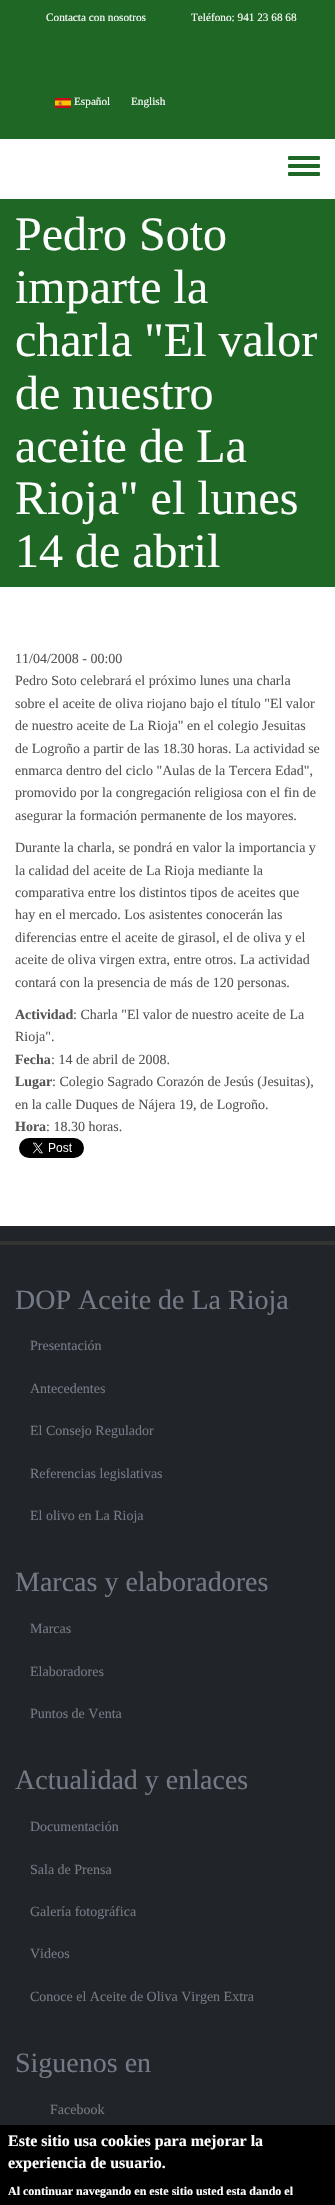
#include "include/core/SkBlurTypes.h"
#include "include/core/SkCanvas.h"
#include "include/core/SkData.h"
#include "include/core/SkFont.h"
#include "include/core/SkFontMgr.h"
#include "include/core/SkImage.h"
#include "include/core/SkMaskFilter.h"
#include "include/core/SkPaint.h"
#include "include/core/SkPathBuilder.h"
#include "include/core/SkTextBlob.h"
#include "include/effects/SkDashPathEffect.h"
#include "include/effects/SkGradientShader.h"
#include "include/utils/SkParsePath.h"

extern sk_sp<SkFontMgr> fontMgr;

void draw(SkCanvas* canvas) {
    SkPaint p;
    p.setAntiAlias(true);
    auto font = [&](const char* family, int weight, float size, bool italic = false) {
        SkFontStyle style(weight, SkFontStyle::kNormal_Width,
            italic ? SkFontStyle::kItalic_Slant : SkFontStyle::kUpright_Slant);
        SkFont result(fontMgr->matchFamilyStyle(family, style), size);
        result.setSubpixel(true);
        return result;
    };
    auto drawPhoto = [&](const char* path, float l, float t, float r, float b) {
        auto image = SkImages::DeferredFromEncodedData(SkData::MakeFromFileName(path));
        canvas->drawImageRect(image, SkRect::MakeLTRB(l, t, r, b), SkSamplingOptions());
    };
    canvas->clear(0xFFFFFFFF);
    p.setColor(0xFF1E6725);
    canvas->drawRect(SkRect::MakeLTRB(0, 0, 335, 139), p);
    auto font1 = font("Liberation Serif", 400, 11.25f);
    p.setColor(0xFFFFFEFF);
    canvas->drawString("Contacta con nosotros", 46, 21, font1, p);
    canvas->drawString("Teléfono: 941 23 68 68", 191, 21, font1, p);
    drawPhoto("media/1.png", 55, 98, 71, 108);
    canvas->drawString("Español", 74, 105, font1, p);
    canvas->drawString("English", 131, 105, font1, p);
    p.setColor(0xFF1E6725);
    canvas->drawRoundRect(SkRect::MakeLTRB(288, 164, 320, 168), 1, 1, p);
    canvas->drawRoundRect(SkRect::MakeLTRB(288, 156, 320, 160), 1, 1, p);
    canvas->drawRoundRect(SkRect::MakeLTRB(288, 172, 320, 176), 1, 1, p);
    canvas->drawRect(SkRect::MakeLTRB(0, 199, 335, 587), p);
    auto font2 = font("Liberation Serif", 400, 48);
    p.setColor(0xFFFFFEFF);
    {
        const struct { const char* s; float x, y; } items[] = {
            {"Pedro Soto", 15, 250},
            {"imparte la", 15, 303},
            {"charla \"El valor", 15, 356},
            {"de nuestro", 15, 409},
            {"aceite de La", 15, 462},
            {"Rioja\" el lunes", 15, 514},
            {"14 de abril", 15, 567},
        };
        for (auto [s, x, y] : items) {
            canvas->drawString(s, x, y, font2, p);
        }
    }
    auto font3 = font("Liberation Serif", 400, 14);
    p.setColor(0xFF555555);
    {
        const struct { const char* s; float x, y; } items[] = {
            {"11/04/2008 - 00:00", 15, 663},
            {"Pedro Soto celebrará el próximo lunes una charla", 15, 685},
            {"sobre el aceite de oliva riojano bajo el título \"El valor", 15, 708},
            {"de nuestro aceite de La Rioja\" en el colegio Jesuitas", 15, 730},
            {"de Logroño a partir de las 18.30 horas. La actividad se", 15, 753},
            {"enmarca dentro del ciclo \"Aulas de la Tercera Edad\",", 15, 775},
            {"promovido por la congregación religiosa con el fin de", 15, 797},
            {"asegurar la formación permanente de los mayores.", 15, 820},
            {"Durante la charla, se pondrá en valor la importancia y", 15, 852},
            {"la calidad del aceite de La Rioja mediante la", 15, 875},
            {"comparativa entre los distintos tipos de aceites que", 15, 897},
            {"hay en el mercado. Los asistentes conocerán las", 15, 919},
            {"diferencias entre el aceite de girasol, el de oliva y el", 15, 942},
            {"aceite de oliva virgen extra, entre otros. La actividad", 15, 964},
            {"contará con la presencia de más de 120 personas.", 15, 987},
        };
        for (auto [s, x, y] : items) {
            canvas->drawString(s, x, y, font3, p);
        }
    }
    auto font4 = font("Liberation Serif", 700, 14);
    canvas->drawString("Actividad", 15, 1019, font4, p);
    canvas->drawString(": Charla \"El valor de nuestro aceite de La", 73, 1019, font3, p);
    canvas->drawString("Rioja\".", 15, 1041, font3, p);
    canvas->drawString("Fecha", 15, 1064, font4, p);
    canvas->drawString(": 14 de abril de 2008.", 51, 1064, font3, p);
    canvas->drawString("Lugar", 15, 1086, font4, p);
    canvas->drawString(": Colegio Sagrado Corazón de Jesús (Jesuitas),", 52, 1086, font3, p);
    canvas->drawString("en la calle Duques de Nájera 19, de Logroño.", 15, 1109, font3, p);
    canvas->drawString("Hora", 15, 1131, font4, p);
    canvas->drawString(": 18.30 horas.", 46, 1131, font3, p);
    drawPhoto("media/2.png", 19, 1138, 84, 1158);
    p.setColor(0xFF21252A);
    canvas->drawRect(SkRect::MakeLTRB(0, 1226, 335, 2125), p);
    p.setColor(0xFF333333);
    canvas->drawRect(SkRect::MakeLTRB(0, 1241, 335, 1245), p);
    auto font5 = font("Liberation Serif", 400, 28);
    p.setColor(0xFF747A85);
    canvas->drawString("DOP Aceite de La Rioja", 15, 1309, font5, p);
    {
        const struct { const char* s; float x, y; } items[] = {
            {"Presentación", 30, 1350},
            {"Antecedentes", 30, 1393},
            {"El Consejo Regulador", 30, 1435},
            {"Referencias legislativas", 30, 1478},
            {"El olivo en La Rioja", 30, 1520},
        };
        for (auto [s, x, y] : items) {
            canvas->drawString(s, x, y, font3, p);
        }
    }
    canvas->drawString("Marcas y elaboradores", 15, 1591, font5, p);
    {
        const struct { const char* s; float x, y; } items[] = {
            {"Marcas", 30, 1633},
            {"Elaboradores", 30, 1676},
            {"Puntos de Venta", 30, 1718},
        };
        for (auto [s, x, y] : items) {
            canvas->drawString(s, x, y, font3, p);
        }
    }
    canvas->drawString("Actualidad y enlaces", 15, 1789, font5, p);
    {
        const struct { const char* s; float x, y; } items[] = {
            {"Documentación", 30, 1831},
            {"Sala de Prensa", 30, 1874},
            {"Galería fotográfica", 30, 1916},
            {"Videos", 30, 1958},
            {"Conoce el Aceite de Oliva Virgen Extra", 30, 2001},
        };
        for (auto [s, x, y] : items) {
            canvas->drawString(s, x, y, font3, p);
        }
    }
    canvas->drawString("Siguenos en", 15, 2072, font5, p);
    canvas->drawString("Facebook", 50, 2114, font3, p);
    p.setColor(0xFF000000);
    canvas->drawRect(SkRect::MakeLTRB(0, 2125, 335, 2205), p);
    auto font6 = font("Liberation Serif", 700, 16);
    p.setColor(0xFFFFFEFF);
    canvas->drawString("Este sitio usa cookies para mejorar la", 8, 2146, font6, p);
    canvas->drawString("experiencia de usuario.", 8, 2168, font6, p);
    auto font7 = font("Liberation Serif", 700, 12);
    canvas->drawString("Al continuar navegando en este sitio usted esta dando el", 8, 2195, font7, p);
}
